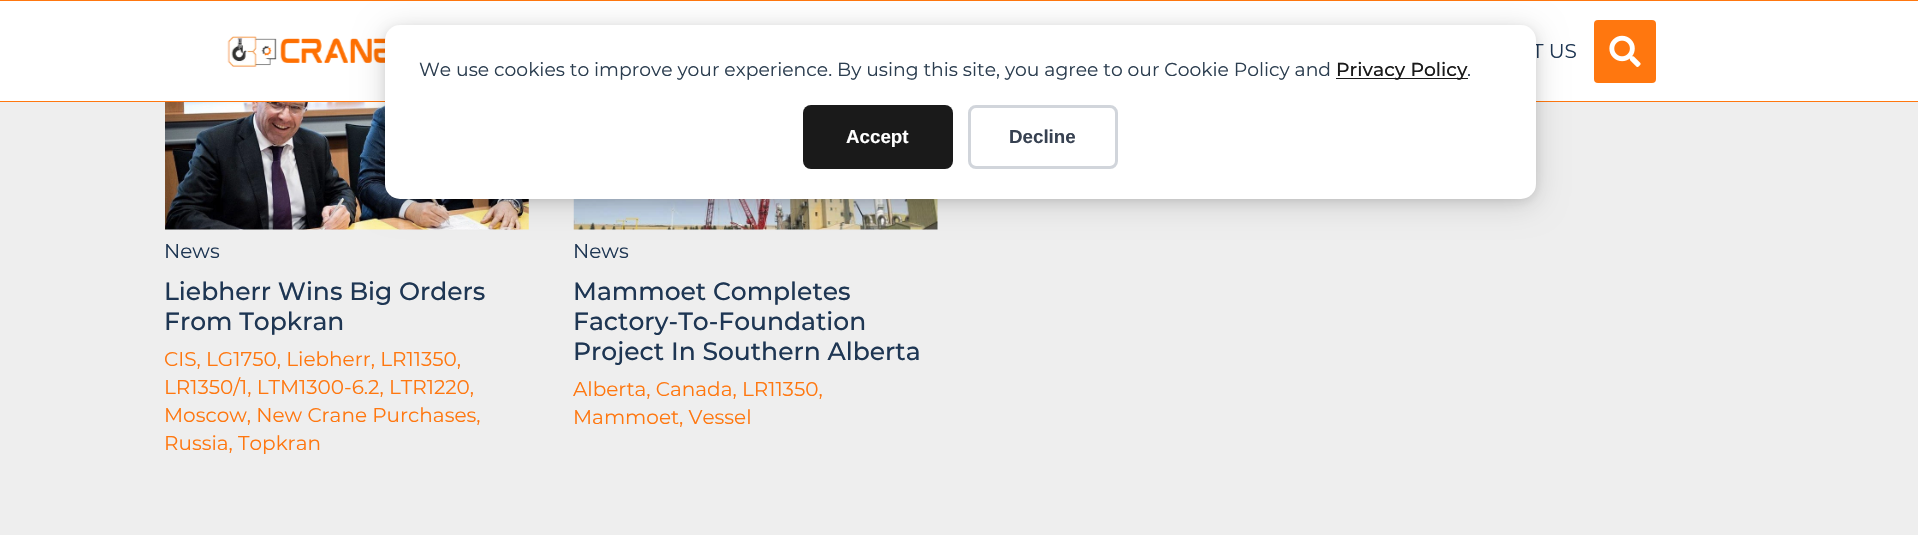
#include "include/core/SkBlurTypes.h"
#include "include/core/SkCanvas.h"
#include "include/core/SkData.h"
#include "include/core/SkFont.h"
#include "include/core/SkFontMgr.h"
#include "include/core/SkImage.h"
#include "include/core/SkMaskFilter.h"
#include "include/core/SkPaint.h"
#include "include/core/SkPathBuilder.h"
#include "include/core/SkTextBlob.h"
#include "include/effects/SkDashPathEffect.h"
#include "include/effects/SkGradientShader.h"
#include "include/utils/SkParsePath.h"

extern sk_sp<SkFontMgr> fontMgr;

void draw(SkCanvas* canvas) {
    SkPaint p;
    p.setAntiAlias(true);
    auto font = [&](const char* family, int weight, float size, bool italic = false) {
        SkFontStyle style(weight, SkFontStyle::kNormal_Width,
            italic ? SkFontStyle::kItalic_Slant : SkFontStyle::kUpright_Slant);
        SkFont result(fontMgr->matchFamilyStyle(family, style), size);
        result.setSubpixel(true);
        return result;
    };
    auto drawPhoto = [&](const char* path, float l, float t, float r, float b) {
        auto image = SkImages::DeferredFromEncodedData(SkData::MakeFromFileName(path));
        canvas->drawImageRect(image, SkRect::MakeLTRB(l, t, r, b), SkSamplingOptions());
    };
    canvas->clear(0xFFEEEEEE);
    {
        const struct { float l, t, r, b; SkColor color; } items[] = {
            {0, 1, 1918, 101, 0xFFFFFFFF},
            {0, 0, 1918, 1, 0xFFFF770F},
            {0, 101, 1918, 102, 0xFFFF770F},
        };
        for (auto [l, t, r, b, color] : items) {
            p.setColor(color);
            canvas->drawRect(SkRect::MakeLTRB(l, t, r, b), p);
        }
    }
    drawPhoto("media/1.png", 227, 36, 386, 67);
    auto font1 = font("Montserrat", 400, 20);
    p.setColor(0xFF1E3653);
    canvas->drawString("T US", 1532, 58, font1, p);
    p.setColor(0xFFFF770F);
    canvas->drawRoundRect(SkRect::MakeLTRB(1594, 20, 1656, 83), 4, 4, p);
    drawPhoto("media/2.png", 1609, 35, 1641, 67);
    drawPhoto("media/3.png", 165, 102, 529, 230);
    drawPhoto("media/4.png", 573, 199, 938, 230);
    p.setColor(0x1A000000);
    p.setMaskFilter(SkMaskFilter::MakeBlur(kNormal_SkBlurStyle, 5));
    canvas->drawRoundRect(SkRect::MakeLTRB(385, 28, 1536, 201), 15, 15, p);
    p.setMaskFilter(nullptr);
    p.setColor(0x26000000);
    p.setMaskFilter(SkMaskFilter::MakeBlur(kNormal_SkBlurStyle, 15));
    canvas->drawRoundRect(SkRect::MakeLTRB(385, 30, 1536, 204), 15, 15, p);
    p.setMaskFilter(nullptr);
    p.setColor(0xFFFFFFFF);
    canvas->drawRoundRect(SkRect::MakeLTRB(385, 25, 1536, 199), 15, 15, p);
    auto font2 = font("Montserrat", 400, 18.75f);
    p.setColor(0xFF2C3E50);
    canvas->drawString("We use cookies to improve your experience. By using this site, you agree to our Cookie Policy and", 419, 76, font2, p);
    p.setColor(0xFF1A1A1A);
    canvas->drawRect(SkRect::MakeLTRB(1336, 78, 1468, 79), p);
    auto font3 = font("Montserrat", 500, 18.75f);
    canvas->drawString("Privacy Policy", 1336, 76, font3, p);
    p.setColor(0xFF2C3E50);
    canvas->drawString(".", 1467, 76, font2, p);
    p.setColor(0xFF1A1A1A);
    canvas->drawRoundRect(SkRect::MakeLTRB(803, 105, 953, 169), 8, 8, p);
    auto font4 = font("Liberation Sans", 700, 18.75f);
    p.setColor(0xFFFFFFFF);
    canvas->drawString("Accept", 846, 143, font4, p);
    p.setStyle(SkPaint::kStroke_Style);
    p.setStrokeWidth(3);
    p.setColor(0xFFD1D5DB);
    canvas->drawRoundRect(SkRect::MakeLTRB(969.5f, 106.5f, 1116.5f, 167.5f), 6.5f, 6.5f, p);
    p.setStyle(SkPaint::kFill_Style);
    p.setColor(0xFF374151);
    canvas->drawString("Decline", 1009, 143, font4, p);
    p.setColor(0xFF1E3653);
    canvas->drawString("News", 164, 258, font1, p);
    auto font5 = font("Montserrat", 500, 25);
    canvas->drawString("Liebherr Wins Big Orders", 164, 300, font5, p);
    canvas->drawString("From Topkran", 164, 330, font5, p);
    p.setColor(0xFFFF770F);
    {
        const struct { const char* s; float x, y; } items[] = {
            {"CIS, LG1750, Liebherr, LR11350,", 164, 366},
            {"LR1350/1, LTM1300-6.2, LTR1220,", 164, 394},
            {"Moscow, New Crane Purchases,", 164, 422},
            {"Russia, Topkran", 164, 450},
        };
        for (auto [s, x, y] : items) {
            canvas->drawString(s, x, y, font1, p);
        }
    }
    p.setColor(0xFF1E3653);
    canvas->drawString("News", 573, 258, font1, p);
    {
        const struct { const char* s; float x, y; } items[] = {
            {"Mammoet Completes", 573, 300},
            {"Factory-To-Foundation", 573, 330},
            {"Project In Southern Alberta", 573, 360},
        };
        for (auto [s, x, y] : items) {
            canvas->drawString(s, x, y, font5, p);
        }
    }
    p.setColor(0xFFFF770F);
    canvas->drawString("Alberta, Canada, LR11350,", 573, 396, font1, p);
    canvas->drawString("Mammoet, Vessel", 573, 424, font1, p);
}
